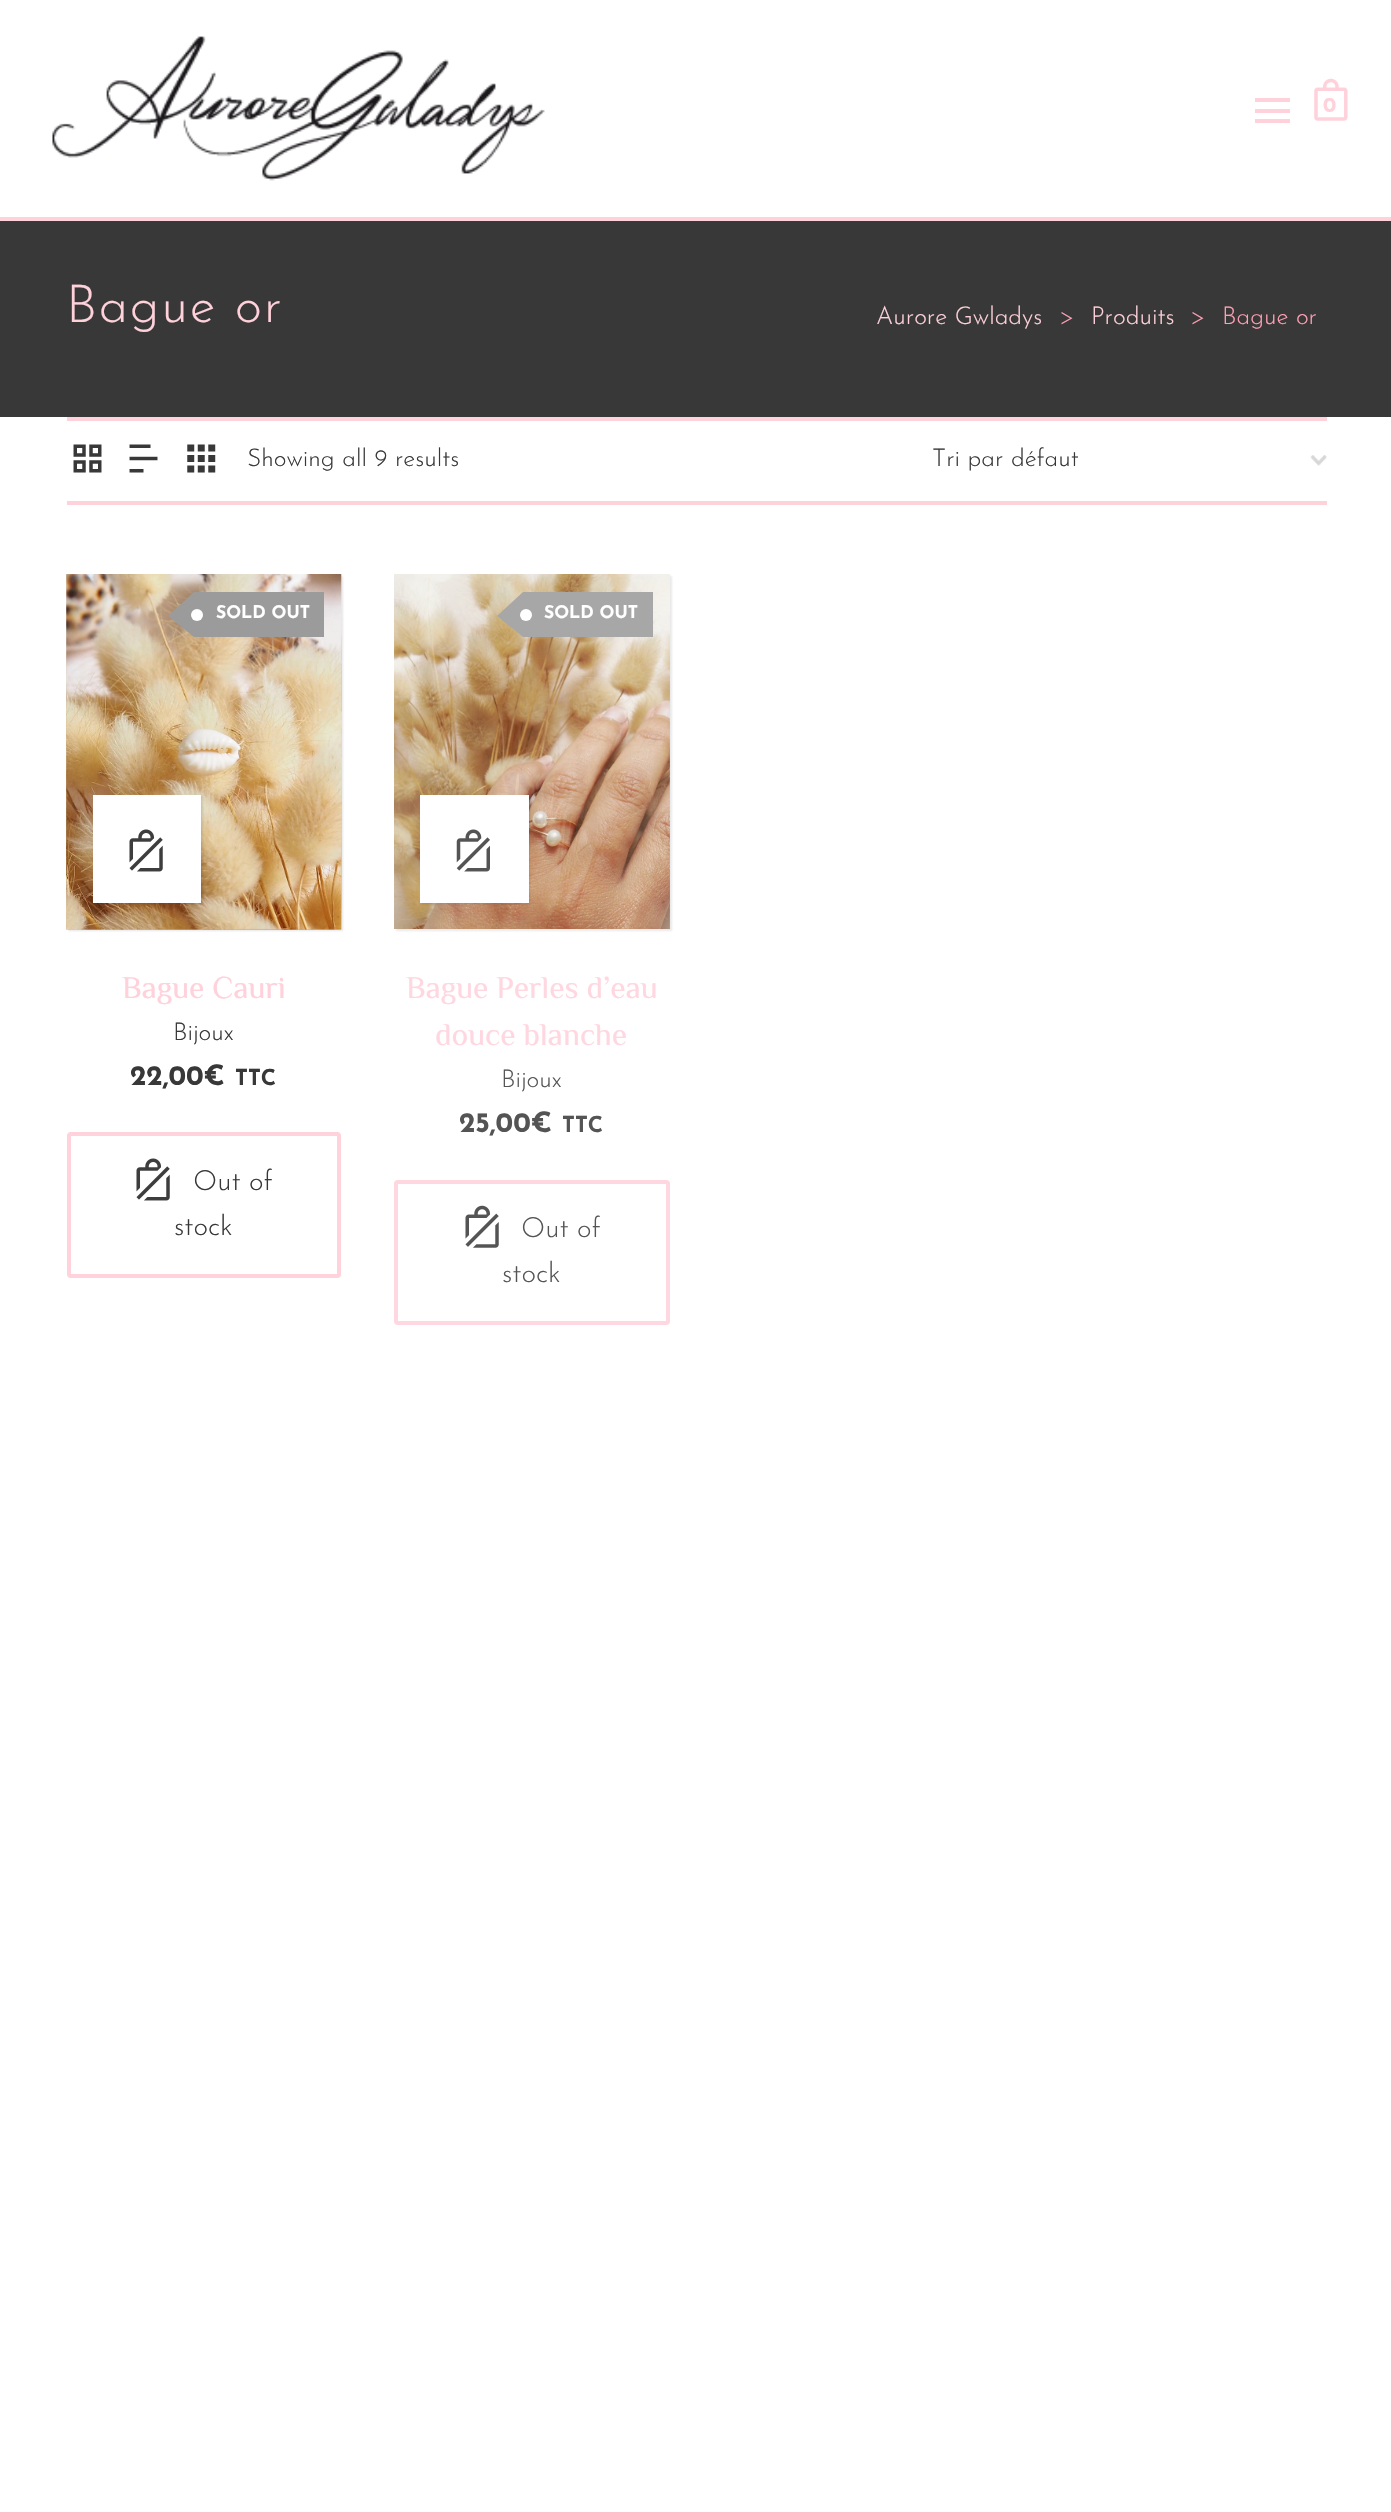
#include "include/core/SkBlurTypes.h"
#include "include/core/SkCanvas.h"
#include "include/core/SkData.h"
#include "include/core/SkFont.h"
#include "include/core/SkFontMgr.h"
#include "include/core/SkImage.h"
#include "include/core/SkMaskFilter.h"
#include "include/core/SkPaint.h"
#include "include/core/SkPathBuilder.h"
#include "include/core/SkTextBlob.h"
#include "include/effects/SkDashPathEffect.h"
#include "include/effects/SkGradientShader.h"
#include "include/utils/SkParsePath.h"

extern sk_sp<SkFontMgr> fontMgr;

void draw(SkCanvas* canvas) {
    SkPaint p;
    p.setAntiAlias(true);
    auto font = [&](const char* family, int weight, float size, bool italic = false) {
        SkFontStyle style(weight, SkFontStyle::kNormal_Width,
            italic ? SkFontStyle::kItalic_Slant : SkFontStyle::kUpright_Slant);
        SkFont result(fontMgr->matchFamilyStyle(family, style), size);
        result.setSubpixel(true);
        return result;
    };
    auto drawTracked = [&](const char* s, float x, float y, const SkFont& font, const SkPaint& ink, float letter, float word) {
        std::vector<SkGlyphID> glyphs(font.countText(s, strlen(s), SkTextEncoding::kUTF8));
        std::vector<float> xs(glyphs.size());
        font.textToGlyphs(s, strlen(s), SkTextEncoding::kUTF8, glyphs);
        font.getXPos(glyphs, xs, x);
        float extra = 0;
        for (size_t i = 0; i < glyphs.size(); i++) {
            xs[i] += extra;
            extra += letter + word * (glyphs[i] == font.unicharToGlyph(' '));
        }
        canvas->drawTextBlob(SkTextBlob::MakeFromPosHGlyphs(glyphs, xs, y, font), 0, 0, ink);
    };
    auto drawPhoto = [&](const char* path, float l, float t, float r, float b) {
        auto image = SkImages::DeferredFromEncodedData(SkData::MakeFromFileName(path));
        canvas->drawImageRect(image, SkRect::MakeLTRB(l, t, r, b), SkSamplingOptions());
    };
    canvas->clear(0xFFFFFFFF);
    p.setColor(0xFFFFD1DB);
    canvas->drawRect(SkRect::MakeLTRB(0, 217, 1391, 221), p);
    drawPhoto("media/1.png", 52, 36, 545, 181);
    {
        const struct { float l, t, r, b; SkColor color; } items[] = {
            {1255, 109, 1290, 113, 0xFFFFD1DB},
            {1255, 98, 1290, 102, 0xFFFFD1DB},
            {1255, 119, 1290, 123, 0xFFFFD1DB},
        };
        for (auto [l, t, r, b, color] : items) {
            p.setColor(color);
            canvas->drawRect(SkRect::MakeLTRB(l, t, r, b), p);
        }
    }
    drawPhoto("media/2.png", 1314, 78, 1348, 121);
    auto font1 = font("Josefin Sans", 700, 21);
    canvas->drawString("0", 1323, 112, font1, p);
    p.setColor(0xFF383838);
    canvas->drawRect(SkRect::MakeLTRB(0, 221, 1391, 417), p);
    auto font2 = font("Josefin Sans", 300, 52.5f);
    p.setColor(0xFFFFD1DB);
    drawTracked("Bague or", 66, 322, font2, p, 1.75f, 0);
    auto font3 = font("Josefin Sans", 300, 24.5f);
    canvas->drawString("Aurore Gwladys", 876, 324, font3, p);
    p.setColor(0xFFFFA0B6);
    canvas->drawString(">", 1059, 324, font3, p);
    p.setColor(0xFFFFD1DB);
    canvas->drawString("Produits", 1091, 324, font3, p);
    p.setColor(0xFFFFA0B6);
    canvas->drawString(">", 1190, 324, font3, p);
    canvas->drawString("Bague or", 1222, 324, font3, p);
    p.setColor(0xFFFFD1DB);
    canvas->drawRect(SkRect::MakeLTRB(67, 417, 1327, 421), p);
    canvas->drawRect(SkRect::MakeLTRB(67, 501, 1327, 505), p);
    drawPhoto("media/3.png", 73, 444, 102, 473);
    drawPhoto("media/4.png", 129, 444, 158, 473);
    drawPhoto("media/5.png", 187, 444, 216, 473);
    p.setColor(0xFF383838);
    canvas->drawString("Showing all 9 results", 247, 466, font3, p);
    drawPhoto("media/6.png", 1310, 455, 1327, 466);
    canvas->drawString("Tri par défaut", 932, 466, font3, p);
    canvas->save();
    canvas->clipPath(SkPathBuilder(SkPathFillType::kEvenOdd).moveTo(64, 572).lineTo(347, 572).lineTo(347, 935).lineTo(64, 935).close().moveTo(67, 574).lineTo(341, 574).lineTo(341, 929).lineTo(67, 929).close().detach(), true);
    p.setColor(0x1A060606);
    p.setMaskFilter(SkMaskFilter::MakeBlur(kNormal_SkBlurStyle, 1));
    canvas->drawRect(SkRect::MakeLTRB(68, 576, 343, 931), p);
    p.setMaskFilter(nullptr);
    canvas->restore();
    drawPhoto("media/7.png", 66, 574, 342, 930);
    drawPhoto("media/8.png", 66, 574, 342, 930);
    p.setColor(0xFF9B9B9B);
    canvas->drawRect(SkRect::MakeLTRB(194, 592, 324, 637), p);
    canvas->drawPath(SkPathBuilder().moveTo(194, 592).lineTo(194, 637).lineTo(168, 616).close().detach(), p);
    p.setColor(0xFFFFFFFF);
    canvas->drawCircle(197, 615, 6, p);
    auto font4 = font("Josefin Sans", 700, 17.5f);
    canvas->drawString("SOLD OUT", 216, 618, font4, p);
    p.setColor(0x1A060606);
    p.setMaskFilter(SkMaskFilter::MakeBlur(kNormal_SkBlurStyle, 1));
    canvas->drawRect(SkRect::MakeLTRB(95, 796, 203, 905), p);
    p.setMaskFilter(nullptr);
    p.setColor(0xFFFFFFFF);
    canvas->drawRect(SkRect::MakeLTRB(93, 795, 201, 903), p);
    drawPhoto("media/9.png", 129, 829, 163, 872);
    auto font5 = font("Philosopher", 400, 31.5f);
    p.setColor(0xFFFFD1DB);
    canvas->drawString("Bague Cauri", 122, 998, font5, p);
    p.setColor(0xFF383838);
    canvas->drawString("Bijoux", 173, 1040, font3, p);
    auto font6 = font("Josefin Sans", 700, 28);
    canvas->drawString("22,00€", 130, 1085, font6, p);
    auto font7 = font("Josefin Sans", 700, 22);
    canvas->drawString("TTC", 235, 1085, font7, p);
    p.setStyle(SkPaint::kStroke_Style);
    p.setStrokeWidth(4);
    p.setColor(0xFFFFD2DC);
    canvas->drawRoundRect(SkRect::MakeLTRB(69, 1134, 339, 1276), 2, 2, p);
    drawPhoto("media/9.png", 136, 1158, 170, 1201);
    auto font8 = font("Josefin Sans", 300, 28);
    p.setStyle(SkPaint::kFill_Style);
    p.setColor(0xFF383838);
    canvas->drawString("Out of", 193, 1190, font8, p);
    canvas->drawString("stock", 174, 1235, font8, p);
    canvas->save();
    canvas->clipPath(SkPathBuilder(SkPathFillType::kEvenOdd).moveTo(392, 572).lineTo(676, 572).lineTo(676, 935).lineTo(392, 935).close().moveTo(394, 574).lineTo(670, 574).lineTo(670, 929).lineTo(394, 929).close().detach(), true);
    p.setColor(0x1A242424);
    p.setMaskFilter(SkMaskFilter::MakeBlur(kNormal_SkBlurStyle, 1));
    canvas->drawRect(SkRect::MakeLTRB(396, 576, 672, 931), p);
    p.setMaskFilter(nullptr);
    canvas->restore();
    drawPhoto("media/10.png", 394, 574, 670, 929);
    drawPhoto("media/11.png", 394, 574, 670, 929);
    p.setColor(0xFFA7A7A7);
    canvas->drawRect(SkRect::MakeLTRB(523, 592, 653, 637), p);
    canvas->drawPath(SkPathBuilder().moveTo(523, 592).lineTo(523, 637).lineTo(497, 616).close().detach(), p);
    p.setColor(0xFFFFFFFF);
    canvas->drawCircle(526, 615, 6, p);
    canvas->drawString("SOLD OUT", 544, 618, font4, p);
    p.setColor(0x1A242424);
    p.setMaskFilter(SkMaskFilter::MakeBlur(kNormal_SkBlurStyle, 1));
    canvas->drawRect(SkRect::MakeLTRB(422, 796, 530, 905), p);
    p.setMaskFilter(nullptr);
    p.setColor(0xFFFFFFFF);
    canvas->drawRect(SkRect::MakeLTRB(420, 795, 529, 903), p);
    drawPhoto("media/12.png", 456, 829, 490, 872);
    p.setColor(0xFFFFD7E0);
    canvas->drawString("Bague Perles d’eau", 406, 998, font5, p);
    canvas->drawString("douce blanche", 435, 1045, font5, p);
    p.setColor(0xFF545454);
    canvas->drawString("Bijoux", 501, 1087, font3, p);
    canvas->drawString("25,00€", 459, 1132, font6, p);
    canvas->drawString("TTC", 562, 1132, font7, p);
    p.setStyle(SkPaint::kStroke_Style);
    p.setColor(0xFFFFD7E0);
    canvas->drawRoundRect(SkRect::MakeLTRB(396, 1182, 668, 1323), 2, 2, p);
    drawPhoto("media/13.png", 465, 1205, 499, 1248);
    p.setStyle(SkPaint::kFill_Style);
    p.setColor(0xFF545454);
    canvas->drawString("Out of", 521, 1237, font8, p);
    canvas->drawString("stock", 502, 1282, font8, p);
}
